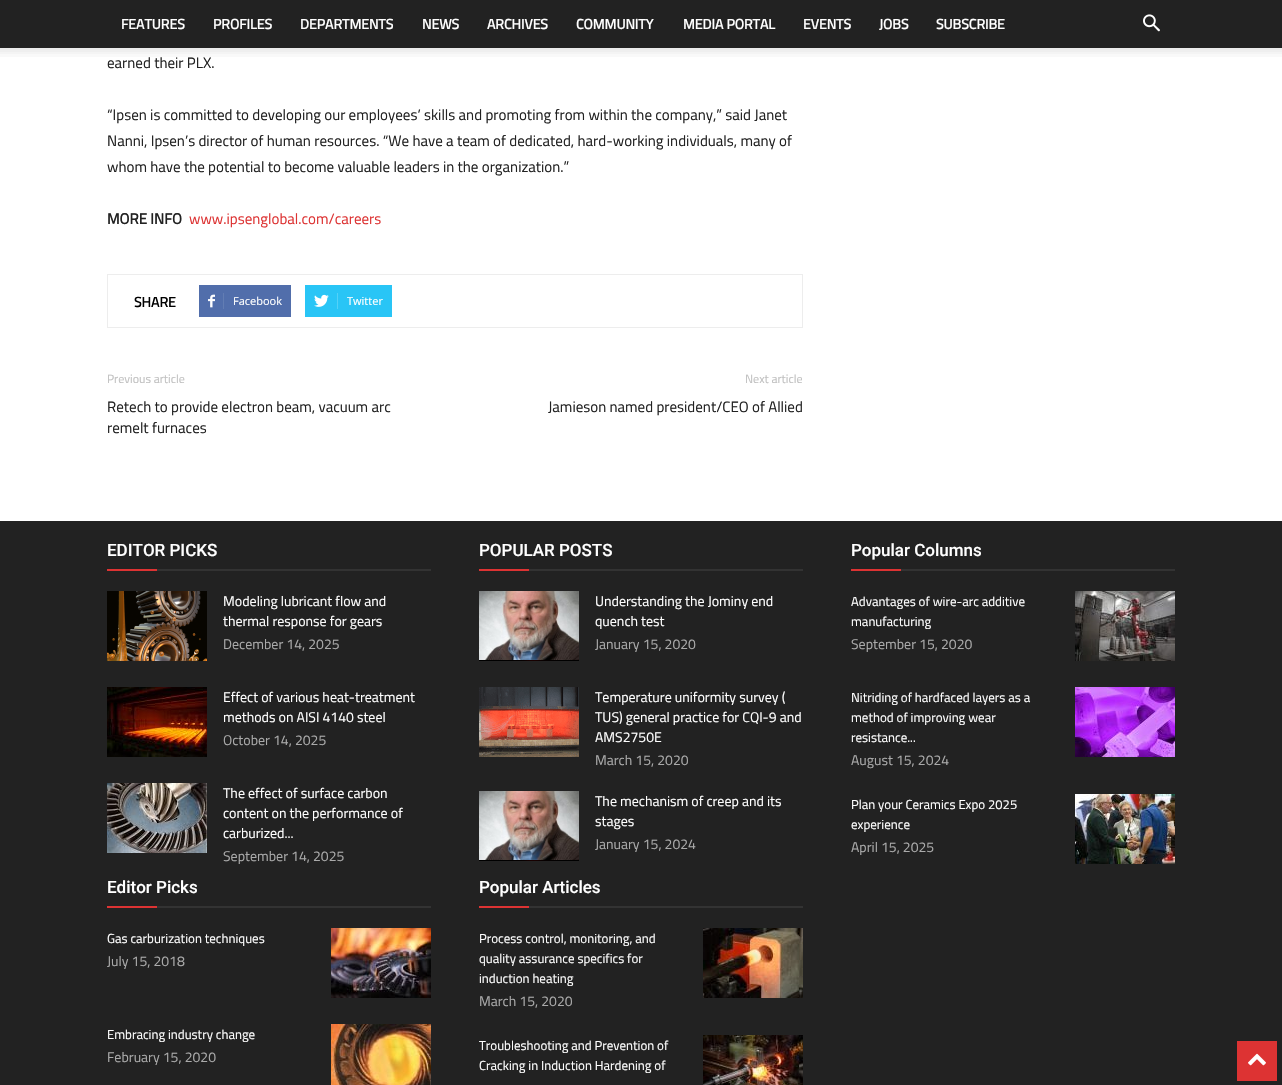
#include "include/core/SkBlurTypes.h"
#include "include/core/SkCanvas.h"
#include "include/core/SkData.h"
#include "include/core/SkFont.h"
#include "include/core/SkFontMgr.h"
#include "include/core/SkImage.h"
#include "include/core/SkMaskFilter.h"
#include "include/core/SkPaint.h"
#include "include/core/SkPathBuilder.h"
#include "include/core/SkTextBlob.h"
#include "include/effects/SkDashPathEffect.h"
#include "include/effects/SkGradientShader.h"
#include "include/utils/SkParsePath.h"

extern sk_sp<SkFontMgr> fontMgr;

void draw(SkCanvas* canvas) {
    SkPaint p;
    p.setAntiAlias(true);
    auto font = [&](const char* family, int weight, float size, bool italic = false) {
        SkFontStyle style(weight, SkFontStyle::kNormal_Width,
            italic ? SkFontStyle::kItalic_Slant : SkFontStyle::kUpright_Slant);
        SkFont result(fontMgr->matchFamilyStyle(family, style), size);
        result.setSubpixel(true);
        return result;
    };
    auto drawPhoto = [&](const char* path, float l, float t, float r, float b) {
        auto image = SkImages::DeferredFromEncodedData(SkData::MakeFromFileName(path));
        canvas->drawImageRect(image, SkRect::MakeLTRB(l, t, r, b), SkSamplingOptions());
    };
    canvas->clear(0xFFFFFFFF);
    p.setColor(0xFF222222);
    canvas->drawRect(SkRect::MakeLTRB(0, 0, 1282, 48), p);
    auto font1 = font("Titillium Web", 700, 14);
    p.setColor(0xFFFFFFFF);
    {
        const struct { const char* s; float x, y; } items[] = {
            {"FEATURES", 121, 29},
            {"PROFILES", 213, 29},
            {"DEPARTMENTS", 300, 29},
            {"NEWS", 422, 29},
            {"ARCHIVES", 487, 29},
            {"COMMUNITY", 576, 29},
            {"MEDIA PORTAL", 683, 29},
            {"EVENTS", 803, 29},
            {"JOBS", 879, 29},
            {"SUBSCRIBE", 936, 29},
        };
        for (auto [s, x, y] : items) {
            canvas->drawString(s, x, y, font1, p);
        }
    }
    drawPhoto("media/1.png", 1143, 14, 1160, 32);
    drawPhoto("media/2.png", 0, 48, 1282, 57);
    auto font2 = font("Titillium Web", 400, 15);
    p.setColor(0xFF222222);
    {
        const struct { const char* s; float x, y; } items[] = {
            {"earned their PLX.", 107, 68},
            {"“Ipsen is committed to developing our employees’ skills and promoting from within the company,” said Janet", 107, 120},
            {"Nanni, Ipsen’s director of human resources. “We have a team of dedicated, hard-working individuals, many of", 107, 146},
            {"whom have the potential to become valuable leaders in the organization.”", 107, 172},
        };
        for (auto [s, x, y] : items) {
            canvas->drawString(s, x, y, font2, p);
        }
    }
    auto font3 = font("Titillium Web", 700, 15);
    canvas->drawString("MORE INFO", 107, 224, font3, p);
    p.setColor(0xFFDD3333);
    canvas->drawString("www.ipsenglobal.com/careers", 189, 224, font2, p);
    p.setStyle(SkPaint::kStroke_Style);
    p.setStrokeWidth(1);
    p.setColor(0xFFEDEDED);
    canvas->drawRect(SkRect::MakeLTRB(107.5f, 274.5f, 802.5f, 327.5f), p);
    p.setStyle(SkPaint::kFill_Style);
    p.setColor(0xFF000000);
    canvas->drawString("SHARE", 134, 307, font1, p);
    p.setColor(0xFF516EAB);
    canvas->drawRect(SkRect::MakeLTRB(199, 285, 291, 317), p);
    drawPhoto("media/3.png", 208, 294, 215, 308);
    p.setColor(0xFF627DB3);
    canvas->drawRect(SkRect::MakeLTRB(223, 293, 224, 309), p);
    auto font4 = font("Open Sans", 400, 11);
    p.setColor(0xFFFFFFFF);
    canvas->drawString("Facebook", 233, 305, font4, p);
    p.setColor(0xFF29C5F6);
    canvas->drawRect(SkRect::MakeLTRB(305, 285, 392, 317), p);
    drawPhoto("media/4.png", 314, 294, 329, 307);
    p.setColor(0xFF54D1F8);
    canvas->drawRect(SkRect::MakeLTRB(337, 293, 338, 309), p);
    p.setColor(0xFFFFFFFF);
    canvas->drawString("Twitter", 347, 305, font4, p);
    auto font5 = font("Titillium Web", 400, 12);
    p.setColor(0xFFC1C1C1);
    canvas->drawString("Previous article", 107, 383, font5, p);
    p.setColor(0xFF222222);
    canvas->drawString("Retech to provide electron beam, vacuum arc", 107, 412, font2, p);
    canvas->drawString("remelt furnaces", 107, 433, font2, p);
    p.setColor(0xFFC1C1C1);
    canvas->drawString("Next article", 745, 383, font5, p);
    p.setColor(0xFF222222);
    canvas->drawString("Jamieson named president/CEO of Allied", 548, 412, font2, p);
    canvas->drawRect(SkRect::MakeLTRB(0, 521, 1282, 1085), p);
    auto font6 = font("Roboto", 500, 17);
    p.setColor(0xFFFFFFFF);
    canvas->drawString("EDITOR PICKS", 107, 556, font6, p);
    p.setColor(0xFFDD3333);
    canvas->drawRect(SkRect::MakeLTRB(107, 569, 157, 571), p);
    p.setColor(0xFF333333);
    canvas->drawRect(SkRect::MakeLTRB(157, 569, 431, 571), p);
    drawPhoto("media/5.png", 107, 591, 207, 661);
    auto font7 = font("Titillium Web", 400, 14);
    p.setColor(0xFFFFFFFF);
    canvas->drawString("Modeling lubricant flow and", 223, 606, font7, p);
    canvas->drawString("thermal response for gears", 223, 626, font7, p);
    p.setColor(0xFFAAAAAA);
    canvas->drawString("December 14, 2025", 223, 649, font7, p);
    drawPhoto("media/6.png", 107, 687, 207, 757);
    p.setColor(0xFFFFFFFF);
    canvas->drawString("Effect of various heat-treatment", 223, 702, font7, p);
    canvas->drawString("methods on AISI 4140 steel", 223, 722, font7, p);
    p.setColor(0xFFAAAAAA);
    canvas->drawString("October 14, 2025", 223, 745, font7, p);
    drawPhoto("media/7.png", 107, 783, 207, 853);
    p.setColor(0xFFFFFFFF);
    {
        const struct { const char* s; float x, y; } items[] = {
            {"The effect of surface carbon", 223, 798},
            {"content on the performance of", 223, 818},
            {"carburized...", 223, 838},
        };
        for (auto [s, x, y] : items) {
            canvas->drawString(s, x, y, font7, p);
        }
    }
    p.setColor(0xFFAAAAAA);
    canvas->drawString("September 14, 2025", 223, 861, font7, p);
    p.setColor(0xFFFFFFFF);
    canvas->drawString("Editor Picks", 107, 893, font6, p);
    p.setColor(0xFFDD3333);
    canvas->drawRect(SkRect::MakeLTRB(107, 906, 157, 908), p);
    p.setColor(0xFF333333);
    canvas->drawRect(SkRect::MakeLTRB(157, 906, 431, 908), p);
    auto font8 = font("Titillium Web", 400, 13);
    p.setColor(0xFFFFFFFF);
    canvas->drawString("Gas carburization techniques", 107, 943, font8, p);
    p.setColor(0xFFAAAAAA);
    canvas->drawString("July 15, 2018", 107, 966, font7, p);
    drawPhoto("media/8.png", 331, 928, 431, 998);
    p.setColor(0xFFFFFFFF);
    canvas->drawString("Embracing industry change", 107, 1039, font8, p);
    p.setColor(0xFFAAAAAA);
    canvas->drawString("February 15, 2020", 107, 1062, font7, p);
    drawPhoto("media/9.png", 331, 1024, 431, 1085);
    p.setColor(0xFFFFFFFF);
    canvas->drawString("POPULAR POSTS", 479, 556, font6, p);
    p.setColor(0xFFDD3333);
    canvas->drawRect(SkRect::MakeLTRB(479, 569, 529, 571), p);
    p.setColor(0xFF333333);
    canvas->drawRect(SkRect::MakeLTRB(529, 569, 803, 571), p);
    drawPhoto("media/10.png", 479, 660, 579, 661);
    drawPhoto("media/11.png", 479, 591, 579, 660);
    p.setColor(0xFFFFFFFF);
    canvas->drawString("Understanding the Jominy end", 595, 606, font7, p);
    canvas->drawString("quench test", 595, 626, font7, p);
    p.setColor(0xFFAAAAAA);
    canvas->drawString("January 15, 2020", 595, 649, font7, p);
    drawPhoto("media/12.png", 479, 687, 579, 748);
    drawPhoto("media/13.png", 479, 687, 579, 757);
    p.setColor(0xFFFFFFFF);
    {
        const struct { const char* s; float x, y; } items[] = {
            {"Temperature uniformity survey (", 595, 702},
            {"TUS ) general practice for CQI-9 and", 595, 722},
            {"AMS2750E", 595, 742},
        };
        for (auto [s, x, y] : items) {
            canvas->drawString(s, x, y, font7, p);
        }
    }
    p.setColor(0xFFAAAAAA);
    canvas->drawString("March 15, 2020", 595, 765, font7, p);
    drawPhoto("media/10.png", 479, 860, 579, 861);
    drawPhoto("media/11.png", 479, 791, 579, 860);
    p.setColor(0xFFFFFFFF);
    canvas->drawString("The mechanism of creep and its", 595, 806, font7, p);
    canvas->drawString("stages", 595, 826, font7, p);
    p.setColor(0xFFAAAAAA);
    canvas->drawString("January 15, 2024", 595, 849, font7, p);
    p.setColor(0xFFFFFFFF);
    canvas->drawString("Popular Articles", 479, 893, font6, p);
    p.setColor(0xFFDD3333);
    canvas->drawRect(SkRect::MakeLTRB(479, 906, 529, 908), p);
    p.setColor(0xFF333333);
    canvas->drawRect(SkRect::MakeLTRB(529, 906, 803, 908), p);
    p.setColor(0xFFFFFFFF);
    {
        const struct { const char* s; float x, y; } items[] = {
            {"Process control, monitoring, and", 479, 943},
            {"quality assurance specifics for", 479, 963},
            {"induction heating", 479, 983},
        };
        for (auto [s, x, y] : items) {
            canvas->drawString(s, x, y, font8, p);
        }
    }
    p.setColor(0xFFAAAAAA);
    canvas->drawString("March 15, 2020", 479, 1006, font7, p);
    drawPhoto("media/14.png", 703, 928, 803, 998);
    p.setColor(0xFFFFFFFF);
    canvas->drawString("Troubleshooting and Prevention of", 479, 1050, font8, p);
    canvas->drawString("Cracking in Induction Hardening of", 479, 1070, font8, p);
    drawPhoto("media/15.png", 703, 1035, 803, 1085);
    canvas->drawString("Popular Columns", 851, 556, font6, p);
    p.setColor(0xFFDD3333);
    canvas->drawRect(SkRect::MakeLTRB(851, 569, 901, 571), p);
    p.setColor(0xFF333333);
    canvas->drawRect(SkRect::MakeLTRB(901, 569, 1175, 571), p);
    p.setColor(0xFFFFFFFF);
    canvas->drawString("Advantages of wire-arc additive", 851, 606, font8, p);
    canvas->drawString("manufacturing", 851, 626, font8, p);
    p.setColor(0xFFAAAAAA);
    canvas->drawString("September 15, 2020", 851, 649, font7, p);
    drawPhoto("media/16.png", 1075, 591, 1175, 661);
    p.setColor(0xFFFFFFFF);
    {
        const struct { const char* s; float x, y; } items[] = {
            {"Nitriding of hardfaced layers as a", 851, 702},
            {"method of improving wear", 851, 722},
            {"resistance...", 851, 742},
        };
        for (auto [s, x, y] : items) {
            canvas->drawString(s, x, y, font8, p);
        }
    }
    p.setColor(0xFFAAAAAA);
    canvas->drawString("August 15, 2024", 851, 765, font7, p);
    drawPhoto("media/17.png", 1075, 687, 1175, 757);
    p.setColor(0xFFFFFFFF);
    canvas->drawString("Plan your Ceramics Expo 2025", 851, 809, font8, p);
    canvas->drawString("experience", 851, 829, font8, p);
    p.setColor(0xFFAAAAAA);
    canvas->drawString("April 15, 2025", 851, 852, font7, p);
    drawPhoto("media/18.png", 1075, 794, 1175, 864);
    p.setColor(0xFFDD3333);
    canvas->drawRect(SkRect::MakeLTRB(1237, 1041, 1277, 1081), p);
    drawPhoto("media/19.png", 1248, 1053, 1266, 1066);
}
